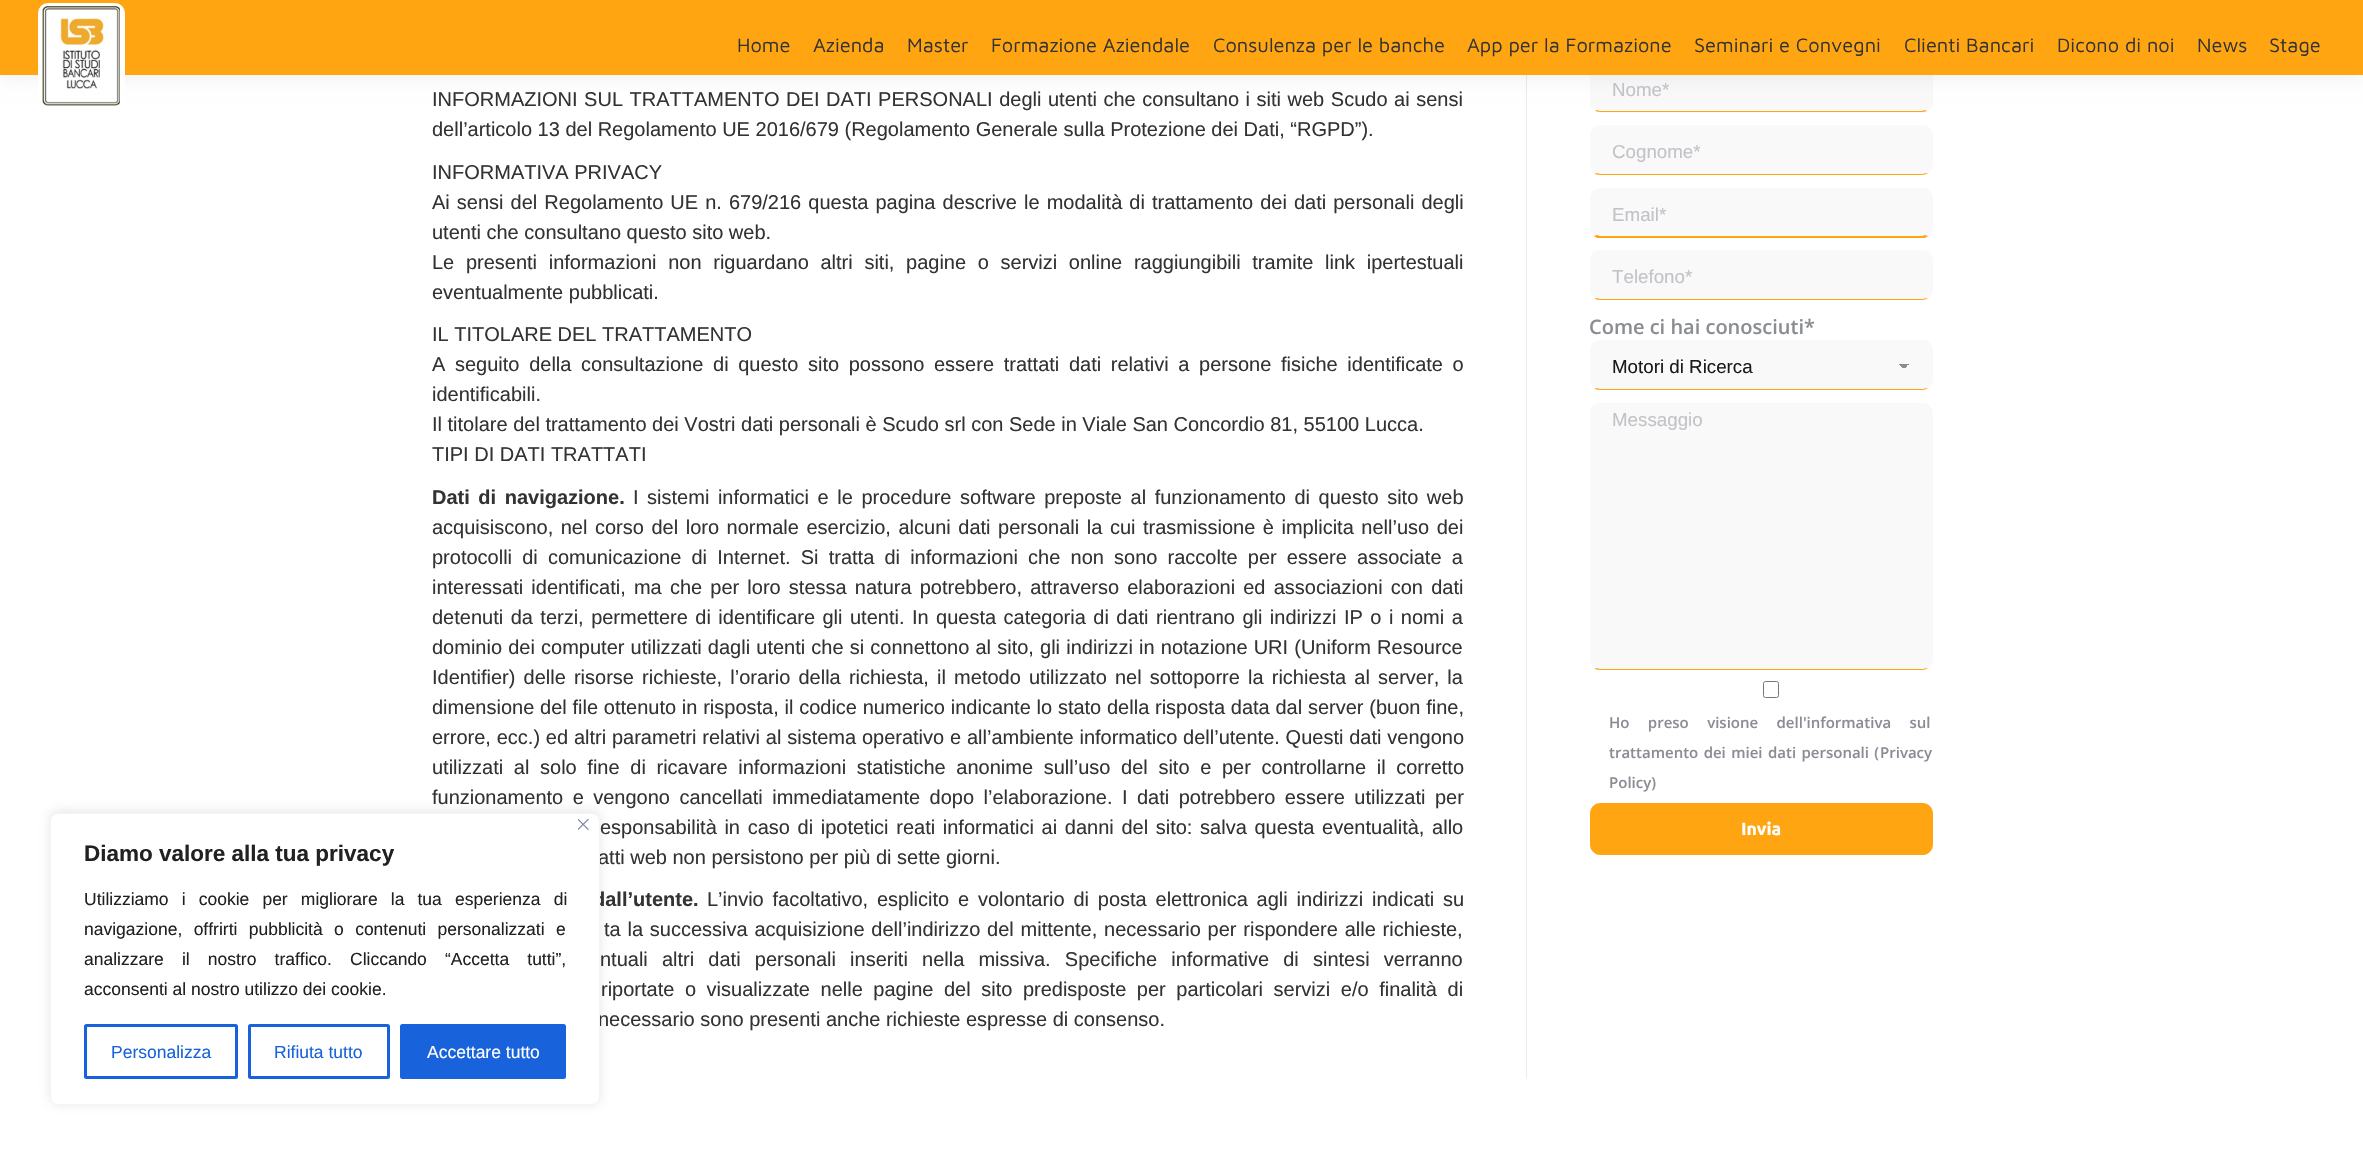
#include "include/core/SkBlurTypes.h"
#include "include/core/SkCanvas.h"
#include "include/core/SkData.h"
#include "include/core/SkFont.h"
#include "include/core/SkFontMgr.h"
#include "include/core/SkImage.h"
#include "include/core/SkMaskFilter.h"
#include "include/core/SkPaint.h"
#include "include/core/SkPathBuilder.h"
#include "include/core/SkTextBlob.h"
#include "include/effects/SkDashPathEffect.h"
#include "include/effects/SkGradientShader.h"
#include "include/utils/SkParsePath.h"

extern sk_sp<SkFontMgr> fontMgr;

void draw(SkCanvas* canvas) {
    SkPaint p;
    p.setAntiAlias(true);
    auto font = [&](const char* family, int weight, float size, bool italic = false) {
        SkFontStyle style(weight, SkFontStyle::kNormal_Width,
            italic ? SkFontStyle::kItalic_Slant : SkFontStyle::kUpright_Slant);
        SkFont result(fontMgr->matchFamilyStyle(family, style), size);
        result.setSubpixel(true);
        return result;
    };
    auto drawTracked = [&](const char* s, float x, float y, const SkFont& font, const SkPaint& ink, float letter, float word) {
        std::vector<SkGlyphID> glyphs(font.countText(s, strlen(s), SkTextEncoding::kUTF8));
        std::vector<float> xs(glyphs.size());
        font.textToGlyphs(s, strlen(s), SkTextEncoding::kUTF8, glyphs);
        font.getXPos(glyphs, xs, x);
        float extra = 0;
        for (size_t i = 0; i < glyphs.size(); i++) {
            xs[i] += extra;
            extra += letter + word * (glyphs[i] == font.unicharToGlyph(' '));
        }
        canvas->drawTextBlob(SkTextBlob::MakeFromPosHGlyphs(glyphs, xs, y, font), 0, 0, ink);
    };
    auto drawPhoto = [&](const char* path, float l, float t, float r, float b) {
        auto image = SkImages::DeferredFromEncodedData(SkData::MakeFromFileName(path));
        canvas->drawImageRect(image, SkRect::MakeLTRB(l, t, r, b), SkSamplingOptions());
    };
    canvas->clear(0xFFFFFFFF);
    p.setColor(0xFFEBEBEB);
    canvas->drawRect(SkRect::MakeLTRB(1526, 75, 1527, 1079), p);
    p.setColor(0xFFF9F9F9);
    canvas->drawRoundRect(SkRect::MakeLTRB(1590, 63, 1933, 113), 10, 10, p);
    p.setColor(0x12000000);
    p.setMaskFilter(SkMaskFilter::MakeBlur(kNormal_SkBlurStyle, 9.5f));
    canvas->drawRect(SkRect::MakeLTRB(-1, -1, 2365, 76), p);
    p.setMaskFilter(nullptr);
    p.setColor(0xFFFFA511);
    canvas->drawRect(SkRect::MakeLTRB(0, 0, 2363, 75), p);
    p.setColor(0xFFFFFFFF);
    canvas->drawRoundRect(SkRect::MakeLTRB(38, 3, 125, 110), 10, 10, p);
    drawPhoto("media/1.png", 42, 6, 120, 106);
    auto font1 = font("Maven Pro", 400, 20);
    p.setColor(0xFF333333);
    {
        const struct { const char* s; float x, y; } items[] = {
            {"Home", 737, 52},
            {"Azienda", 813, 52},
            {"Master", 907, 52},
            {"Formazione Aziendale", 991, 52},
            {"Consulenza per le banche", 1213, 52},
            {"App per la Formazione", 1467, 52},
            {"Seminari e Convegni", 1694, 52},
            {"Clienti Bancari", 1904, 52},
            {"Dicono di noi", 2057, 52},
            {"News", 2197, 52},
            {"Stage", 2269, 52},
        };
        for (auto [s, x, y] : items) {
            canvas->drawString(s, x, y, font1, p);
        }
    }
    p.setColor(0x4DACABAB);
    p.setMaskFilter(SkMaskFilter::MakeBlur(kNormal_SkBlurStyle, 6));
    canvas->drawRoundRect(SkRect::MakeLTRB(50, 811, 600, 1104), 8, 8, p);
    p.setMaskFilter(nullptr);
    auto font2 = font("Liberation Sans", 400, 20);
    p.setColor(0xFF333333);
    canvas->drawString("atti web non persistono per più di sette giorni.", 598, 864, font2, p);
    auto font3 = font("Liberation Sans", 700, 20);
    drawTracked("dall’utente.", 593, 906, font3, p, 0, 3.25f);
    canvas->drawString("necessario sono presenti anche richieste espresse di consenso.", 598, 1026, font2, p);
    p.setColor(0xFFFFFFFF);
    canvas->drawRoundRect(SkRect::MakeLTRB(50.5f, 813.5f, 599.5f, 1104.5f), 7.5f, 7.5f, p);
    p.setStyle(SkPaint::kStroke_Style);
    p.setStrokeWidth(1);
    p.setColor(0xFFF4F4F4);
    canvas->drawRoundRect(SkRect::MakeLTRB(50.5f, 813.5f, 599.5f, 1104.5f), 7.5f, 7.5f, p);
    drawPhoto("media/2.png", 578, 819, 589, 830);
    auto font4 = font("Liberation Sans", 700, 22.5f);
    p.setStyle(SkPaint::kFill_Style);
    p.setColor(0xFF212121);
    canvas->drawString("Diamo valore alla tua privacy", 84, 861, font4, p);
    auto font5 = font("Liberation Sans", 400, 17.5f);
    drawTracked("Utilizziamo i cookie per migliorare la tua esperienza di", 84, 905, font5, p, 0, 8.25f);
    drawTracked("navigazione, offrirti pubblicità o contenuti personalizzati e", 84, 935, font5, p, 0, 6.5f);
    drawTracked("analizzare il nostro traffico. Cliccando “Accetta tutti”,", 84, 965, font5, p, 0, 13.25f);
    canvas->drawString("acconsenti al nostro utilizzo dei cookie.", 84, 995, font5, p);
    p.setStyle(SkPaint::kStroke_Style);
    p.setStrokeWidth(3);
    p.setColor(0xFF1863DC);
    canvas->drawRoundRect(SkRect::MakeLTRB(85.5f, 1025.5f, 236.5f, 1077.5f), 1, 1, p);
    p.setStyle(SkPaint::kFill_Style);
    canvas->drawString("Personalizza", 111, 1058, font5, p);
    p.setStyle(SkPaint::kStroke_Style);
    canvas->drawRoundRect(SkRect::MakeLTRB(249.5f, 1025.5f, 388.5f, 1077.5f), 1, 1, p);
    p.setStyle(SkPaint::kFill_Style);
    canvas->drawString("Rifiuta tutto", 274, 1058, font5, p);
    canvas->drawRoundRect(SkRect::MakeLTRB(401.5f, 1025.5f, 564.5f, 1077.5f), 1, 1, p);
    p.setStyle(SkPaint::kStroke_Style);
    canvas->drawRoundRect(SkRect::MakeLTRB(401.5f, 1025.5f, 564.5f, 1077.5f), 1, 1, p);
    p.setStyle(SkPaint::kFill_Style);
    p.setColor(0xFFFFFFFF);
    canvas->drawString("Accettare tutto", 427, 1058, font5, p);
    p.setColor(0xFF333333);
    drawTracked("INFORMAZIONI SUL TRATTAMENTO DEI DATI PERSONALI degli utenti che consultano i siti web Scudo ai sensi", 432, 106, font2, p, 0, 1);
    canvas->drawString("dell’articolo 13 del Regolamento UE 2016/679 (Regolamento Generale sulla Protezione dei Dati, “RGPD”).", 432, 136, font2, p);
    canvas->drawString("INFORMATIVA PRIVACY", 432, 179, font2, p);
    drawTracked("Ai sensi del Regolamento UE n. 679/216 questa pagina descrive le modalità di trattamento dei dati personali degli", 432, 209, font2, p, 0, 1.5f);
    canvas->drawString("utenti che consultano questo sito web.", 432, 239, font2, p);
    drawTracked("Le presenti informazioni non riguardano altri siti, pagine o servizi online raggiungibili tramite link ipertestuali", 432, 269, font2, p, 0, 6.1f);
    canvas->drawString("eventualmente pubblicati.", 432, 299, font2, p);
    canvas->drawString("IL TITOLARE DEL TRATTAMENTO", 432, 341, font2, p);
    drawTracked("A seguito della consultazione di questo sito possono essere trattati dati relativi a persone fisiche identificate o", 432, 371, font2, p, 0, 4.1f);
    {
        const struct { const char* s; float x, y; } items[] = {
            {"identificabili.", 432, 401},
            {"Il titolare del trattamento dei Vostri dati personali è Scudo srl con Sede in Viale San Concordio 81, 55100 Lucca.", 432, 431},
            {"TIPI DI DATI TRATTATI", 432, 461},
        };
        for (auto [s, x, y] : items) {
            canvas->drawString(s, x, y, font2, p);
        }
    }
    drawTracked("Dati di navigazione.", 432, 504, font3, p, 0, 3);
    drawTracked("I sistemi informatici e le procedure software preposte al funzionamento di questo sito web", 633, 504, font2, p, 0, 3);
    drawTracked("acquisiscono, nel corso del loro normale esercizio, alcuni dati personali la cui trasmissione è implicita nell’uso dei", 432, 534, font2, p, 0, 2);
    drawTracked("protocolli di comunicazione di Internet. Si tratta di informazioni che non sono raccolte per essere associate a", 432, 564, font2, p, 0, 4.6f);
    drawTracked("interessati identificati, ma che per loro stessa natura potrebbero, attraverso elaborazioni ed associazioni con dati", 432, 594, font2, p, 0, 2.6f);
    drawTracked("detenuti da terzi, permettere di identificare gli utenti. In questa categoria di dati rientrano gli indirizzi IP o i nomi a", 432, 624, font2, p, 0, 1.9f);
    drawTracked("dominio dei computer utilizzati dagli utenti che si connettono al sito, gli indirizzi in notazione URI (Uniform Resource", 432, 654, font2, p, 0, 0.6f);
    drawTracked("Identifier) delle risorse richieste, l’orario della richiesta, il metodo utilizzato nel sottoporre la richiesta al server, la", 432, 684, font2, p, 0, 2.6f);
    drawTracked("dimensione del file ottenuto in risposta, il codice numerico indicante lo stato della risposta data dal server (buon fine,", 432, 714, font2, p, 0, 0.2f);
    drawTracked("errore, ecc.) ed altri parametri relativi al sistema operativo e all’ambiente informatico dell’utente. Questi dati vengono", 432, 744, font2, p, 0, 0.25f);
    drawTracked("utilizzati al solo fine di ricavare informazioni statistiche anonime sull’uso del sito e per controllarne il corretto", 432, 774, font2, p, 0, 5.1f);
    drawTracked("funzionamento e vengono cancellati immediatamente dopo l’elaborazione. I dati potrebbero essere utilizzati per", 432, 804, font2, p, 0, 3.9f);
    drawTracked("esponsabilità in caso di ipotetici reati informatici ai danni del sito: salva questa eventualità, allo", 600, 834, font2, p, 0, 2.1f);
    drawTracked("L’invio facoltativo, esplicito e volontario di posta elettronica agli indirizzi indicati su", 707, 906, font2, p, 0, 3.25f);
    drawTracked("ta la successiva acquisizione dell’indirizzo del mittente, necessario per rispondere alle richieste,", 604, 936, font2, p, 0, 1.25f);
    drawTracked("ntuali altri dati personali inseriti nella missiva. Specifiche informative di sintesi verranno", 600, 966, font2, p, 0, 8.6f);
    drawTracked("riportate o visualizzate nelle pagine del sito predisposte per particolari servizi e/o finalità di", 601, 996, font2, p, 0, 5);
    p.setColor(0xFFFFA514);
    canvas->drawPath(SkPathBuilder().moveTo(1927, 111).lineTo(1923, 112).lineTo(1600, 112).lineTo(1595, 111).lineTo(1597, 110).lineTo(1600, 111).lineTo(1922, 111).lineTo(1925, 110).close().detach(), p);
    auto font6 = font("Liberation Sans", 400, 18.75f);
    p.setColor(0xFFC2C3C7);
    canvas->drawString("Nome*", 1612, 96, font6, p);
    p.setColor(0xFFF9F9F9);
    canvas->drawRoundRect(SkRect::MakeLTRB(1590, 125, 1933, 175), 10, 10, p);
    p.setColor(0xFFFFA514);
    canvas->drawPath(SkPathBuilder().moveTo(1600, 175).lineTo(1922, 175).cubicTo(1924, 175, 1926, 174, 1928, 173).lineTo(1926, 173).lineTo(1923, 174).lineTo(1600, 174).lineTo(1597, 173).lineTo(1594, 174).cubicTo(1596, 174, 1598, 175, 1600, 175).close().detach(), p);
    canvas->save();
    canvas->clipRect(SkRect::MakeLTRB(1613, 141, 1910, 163));
    p.setColor(0xFFC2C3C7);
    canvas->drawString("Cognome*", 1612, 158, font6, p);
    canvas->restore();
    p.setColor(0xFFF9F9F9);
    canvas->drawRoundRect(SkRect::MakeLTRB(1590, 188, 1933, 238), 10, 10, p);
    p.setColor(0xFFFFA514);
    canvas->drawPath(SkPathBuilder().moveTo(1597, 238).lineTo(1594, 236).lineTo(1597, 235).lineTo(1600, 236).lineTo(1922, 236).lineTo(1925, 235).lineTo(1928, 236).lineTo(1925, 238).close().detach(), p);
    p.setColor(0xFFC2C3C7);
    canvas->drawString("Email*", 1612, 221, font6, p);
    p.setColor(0xFFF9F9F9);
    canvas->drawRoundRect(SkRect::MakeLTRB(1590, 250, 1933, 300), 10, 10, p);
    p.setColor(0xFFFFA514);
    canvas->drawPath(SkPathBuilder().moveTo(1600, 300).lineTo(1922, 300).cubicTo(1924, 300, 1926, 299, 1928, 298).lineTo(1926, 298).lineTo(1923, 299).lineTo(1600, 299).lineTo(1597, 298).lineTo(1594, 299).cubicTo(1596, 299, 1598, 300, 1600, 300).close().detach(), p);
    p.setColor(0xFFC2C3C7);
    canvas->drawString("Telefono*", 1612, 283, font6, p);
    auto font7 = font("Open Sans", 600, 20);
    p.setColor(0xFF8B8D94);
    canvas->drawString("Come ci hai conosciuti*", 1589, 334, font7, p);
    p.setColor(0xFFF9F9F9);
    canvas->drawRoundRect(SkRect::MakeLTRB(1590, 340, 1933, 390), 10, 10, p);
    {
        const SkColor colors[] = {0xFF8B8D94, 0xFFF9F9F9};
        const float stops[] = {0.5f, 0.5f};
        const SkPoint ends[] = {{1904, 363}, {1910, 369}};
        p.setShader(SkGradientShader::MakeLinear(ends, colors, stops, 2, SkTileMode::kClamp));
        p.setAlpha(255);
    }
    canvas->drawRect(SkRect::MakeLTRB(1904, 364, 1910, 368), p);
    {
        const SkColor colors[] = {0xFFF9F9F9, 0xFF8B8D94};
        const float stops[] = {0.5f, 0.5f};
        const SkPoint ends[] = {{1898, 369}, {1904, 363}};
        p.setShader(SkGradientShader::MakeLinear(ends, colors, stops, 2, SkTileMode::kClamp));
        p.setAlpha(255);
    }
    canvas->drawRect(SkRect::MakeLTRB(1898, 364, 1904, 368), p);
    p.setShader(nullptr);
    p.setColor(0xFFFFA514);
    canvas->drawPath(SkPathBuilder().moveTo(1600, 390).lineTo(1922, 390).cubicTo(1924, 390, 1926, 389, 1928, 388).lineTo(1926, 388).lineTo(1923, 389).lineTo(1600, 389).lineTo(1597, 388).lineTo(1594, 389).cubicTo(1596, 389, 1598, 390, 1600, 390).close().detach(), p);
    p.setColor(0xFF1A1A1A);
    canvas->drawString("Motori di Ricerca", 1612, 373, font6, p);
    p.setColor(0xFFF9F9F9);
    canvas->drawRoundRect(SkRect::MakeLTRB(1590, 403, 1933, 670), 10, 10, p);
    p.setColor(0xFFFFA514);
    canvas->drawPath(SkPathBuilder().moveTo(1600, 670).lineTo(1922, 670).cubicTo(1924, 670, 1926, 669, 1928, 668).lineTo(1926, 668).lineTo(1923, 669).lineTo(1600, 669).lineTo(1597, 668).lineTo(1594, 669).cubicTo(1596, 669, 1598, 670, 1600, 670).close().detach(), p);
    p.setColor(0xFFC2C3C7);
    canvas->drawString("Messaggio", 1612, 426, font6, p);
    p.setStyle(SkPaint::kStroke_Style);
    p.setStrokeWidth(1);
    p.setColor(0xFF767676);
    canvas->drawRoundRect(SkRect::MakeLTRB(1763.5f, 681.5f, 1778.5f, 697.5f), 2, 2, p);
    auto font8 = font("Open Sans", 600, 15);
    p.setStyle(SkPaint::kFill_Style);
    p.setColor(0xFF8B8D94);
    drawTracked("Ho preso visione dell'informativa sul", 1609, 728, font8, p, 0, 14.5f);
    drawTracked("trattamento dei miei dati personali (", 1609, 758, font8, p, 0, 1.5f);
    canvas->drawString("Privacy", 1880, 758, font8, p);
    canvas->drawString("Policy)", 1609, 788, font8, p);
    p.setColor(0xFFFFA511);
    canvas->drawRoundRect(SkRect::MakeLTRB(1590.5f, 803.5f, 1932.5f, 854.5f), 9.5f, 9.5f, p);
    p.setStyle(SkPaint::kStroke_Style);
    canvas->drawRoundRect(SkRect::MakeLTRB(1590.5f, 803.5f, 1932.5f, 854.5f), 9.5f, 9.5f, p);
    auto font9 = font("Ubuntu", 700, 17.5f);
    p.setStyle(SkPaint::kFill_Style);
    p.setColor(0xFFFFFFFF);
    canvas->drawString("Invia", 1741, 835, font9, p);
}
